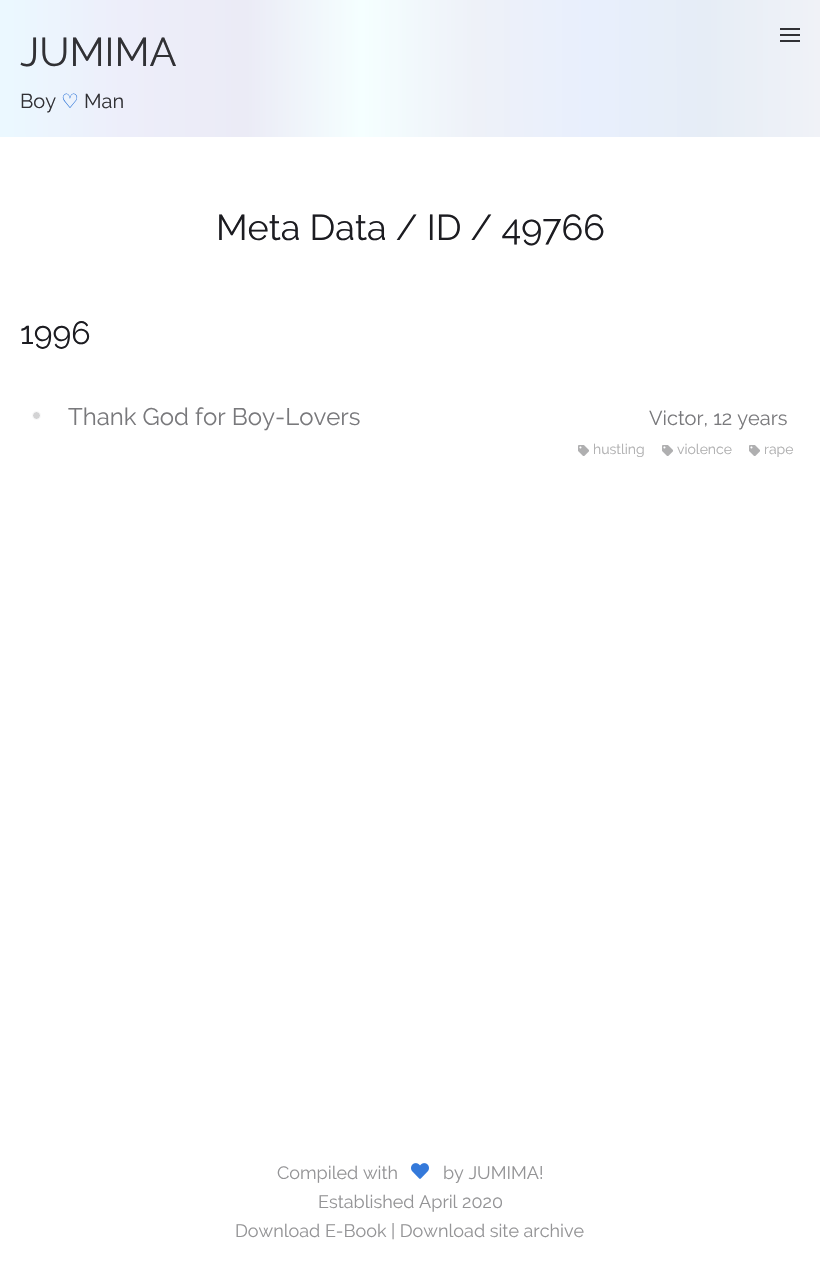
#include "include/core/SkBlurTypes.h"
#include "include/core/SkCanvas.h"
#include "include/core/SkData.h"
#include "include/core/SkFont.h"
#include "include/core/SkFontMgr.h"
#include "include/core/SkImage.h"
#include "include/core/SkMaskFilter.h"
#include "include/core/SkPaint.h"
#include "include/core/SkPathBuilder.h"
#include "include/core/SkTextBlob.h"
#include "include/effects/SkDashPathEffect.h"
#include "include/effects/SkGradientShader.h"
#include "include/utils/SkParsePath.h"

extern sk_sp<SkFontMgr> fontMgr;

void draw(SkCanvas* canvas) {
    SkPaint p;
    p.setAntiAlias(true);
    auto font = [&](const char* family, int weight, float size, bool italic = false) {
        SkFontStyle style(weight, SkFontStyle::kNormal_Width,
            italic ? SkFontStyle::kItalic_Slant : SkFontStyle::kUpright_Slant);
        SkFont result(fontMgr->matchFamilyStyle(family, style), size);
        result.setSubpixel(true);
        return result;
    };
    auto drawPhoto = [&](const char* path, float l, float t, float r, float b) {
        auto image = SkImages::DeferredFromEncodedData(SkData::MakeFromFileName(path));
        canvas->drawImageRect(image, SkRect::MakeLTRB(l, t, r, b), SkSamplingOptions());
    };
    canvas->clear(0xFFFFFFFF);
    {
        const SkColor colors[] = {0xFFEBF8FF, 0xFFEBF8FF, 0xFFEDEEFA, 0xFFEBEBF6, 0xFFF5FFFF, 0xFFEEF1F8, 0xFFE8EFFD, 0xFFE6EDF6, 0xFFF0F2F7};
        const float stops[] = {0, 0.01f, 0.15f, 0.3f, 0.44f, 0.58f, 0.72f, 0.86f, 1};
        const SkPoint ends[] = {{0, 69}, {820, 68}};
        p.setShader(SkGradientShader::MakeLinear(ends, colors, stops, 9, SkTileMode::kClamp));
        p.setAlpha(255);
    }
    canvas->drawRect(SkRect::MakeLTRB(0, 0, 820, 137), p);
    p.setShader(nullptr);
    {
        const struct { float l, t, r, b; SkColor color; } items[] = {
            {780, 28, 800, 30, 0xFF313135},
            {780, 34, 800, 36, 0xFF313135},
            {780, 40, 800, 42, 0xFF313135},
        };
        for (auto [l, t, r, b, color] : items) {
            p.setColor(color);
            canvas->drawRect(SkRect::MakeLTRB(l, t, r, b), p);
        }
    }
    auto font1 = font("Raleway", 400, 40);
    canvas->drawString("JUMIMA", 20, 66, font1, p);
    auto font2 = font("Raleway", 400, 20);
    canvas->drawString("Boy", 20, 108, font2, p);
    auto font3 = font("DejaVu Sans", 400, 20);
    p.setColor(0xFF3479DA);
    canvas->drawString("♡", 61, 108, font3, p);
    p.setColor(0xFF313135);
    canvas->drawString("Man", 84, 108, font2, p);
    auto font4 = font("Raleway", 400, 36);
    p.setColor(0xFF1C1C21);
    canvas->drawString("Meta Data / ID / 49766", 216, 240, font4, p);
    auto font5 = font("Raleway", 400, 32);
    canvas->drawString("1996", 20, 344, font5, p);
    auto font6 = font("Raleway", 400, 24);
    p.setColor(0xFF79797C);
    canvas->drawString("Thank God for Boy-Lovers", 68, 425, font6, p);
    p.setColor(0xFFD3D3D4);
    canvas->drawCircle(36.5f, 415.5f, 4, p);
    p.setStyle(SkPaint::kStroke_Style);
    p.setStrokeWidth(1);
    p.setColor(0xFFFFFFFF);
    canvas->drawCircle(36.5f, 415.5f, 4, p);
    p.setStyle(SkPaint::kFill_Style);
    p.setColor(0xFF79797C);
    canvas->drawString("Victor, 12 years", 649, 425, font2, p);
    drawPhoto("media/1.png", 578, 445, 589, 456);
    auto font7 = font("Raleway", 400, 14);
    p.setColor(0xFFAFAFB0);
    canvas->drawString("hustling", 593, 454, font7, p);
    drawPhoto("media/1.png", 662, 445, 673, 456);
    canvas->drawString("violence", 677, 454, font7, p);
    drawPhoto("media/1.png", 749, 445, 760, 456);
    canvas->drawString("rape", 764, 454, font7, p);
    auto font8 = font("Raleway", 400, 18);
    p.setColor(0xFF949496);
    canvas->drawString("Compiled with", 277, 1179, font8, p);
    drawPhoto("media/2.png", 411, 1163, 429, 1179);
    {
        const struct { const char* s; float x, y; } items[] = {
            {"by JUMIMA!", 443, 1179},
            {"Established April 2020", 318, 1208},
            {"Download E-Book | Download site archive", 235, 1237},
        };
        for (auto [s, x, y] : items) {
            canvas->drawString(s, x, y, font8, p);
        }
    }
}
